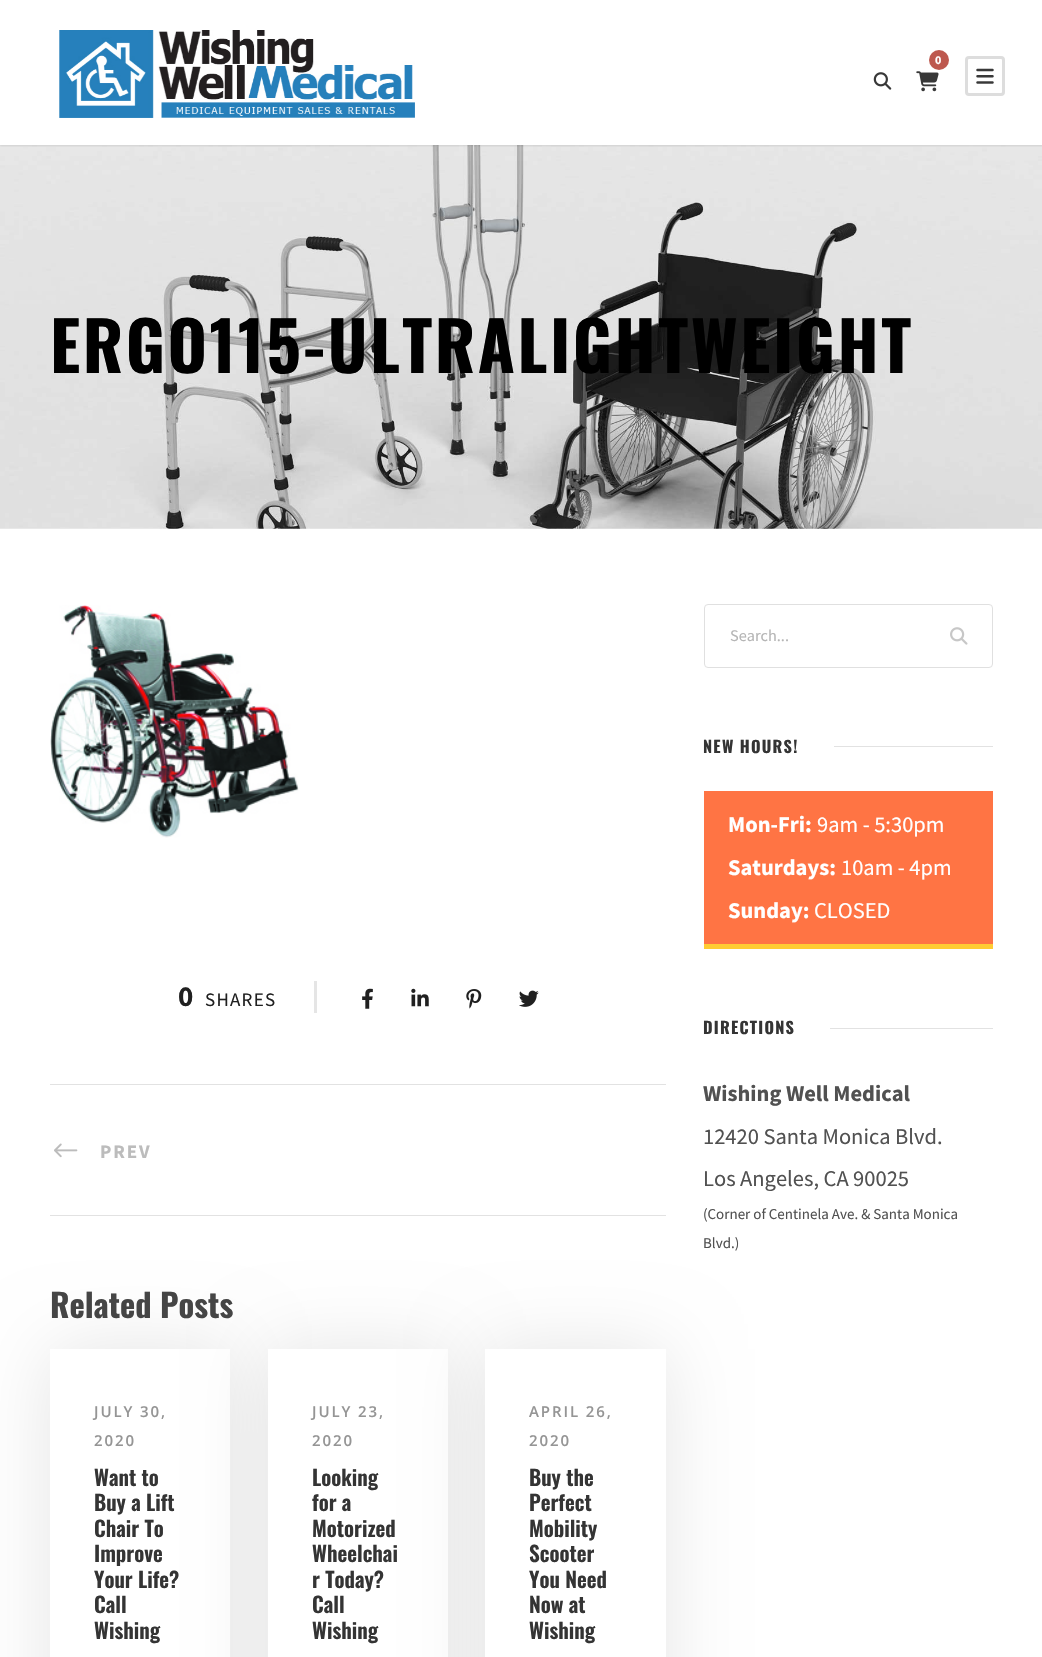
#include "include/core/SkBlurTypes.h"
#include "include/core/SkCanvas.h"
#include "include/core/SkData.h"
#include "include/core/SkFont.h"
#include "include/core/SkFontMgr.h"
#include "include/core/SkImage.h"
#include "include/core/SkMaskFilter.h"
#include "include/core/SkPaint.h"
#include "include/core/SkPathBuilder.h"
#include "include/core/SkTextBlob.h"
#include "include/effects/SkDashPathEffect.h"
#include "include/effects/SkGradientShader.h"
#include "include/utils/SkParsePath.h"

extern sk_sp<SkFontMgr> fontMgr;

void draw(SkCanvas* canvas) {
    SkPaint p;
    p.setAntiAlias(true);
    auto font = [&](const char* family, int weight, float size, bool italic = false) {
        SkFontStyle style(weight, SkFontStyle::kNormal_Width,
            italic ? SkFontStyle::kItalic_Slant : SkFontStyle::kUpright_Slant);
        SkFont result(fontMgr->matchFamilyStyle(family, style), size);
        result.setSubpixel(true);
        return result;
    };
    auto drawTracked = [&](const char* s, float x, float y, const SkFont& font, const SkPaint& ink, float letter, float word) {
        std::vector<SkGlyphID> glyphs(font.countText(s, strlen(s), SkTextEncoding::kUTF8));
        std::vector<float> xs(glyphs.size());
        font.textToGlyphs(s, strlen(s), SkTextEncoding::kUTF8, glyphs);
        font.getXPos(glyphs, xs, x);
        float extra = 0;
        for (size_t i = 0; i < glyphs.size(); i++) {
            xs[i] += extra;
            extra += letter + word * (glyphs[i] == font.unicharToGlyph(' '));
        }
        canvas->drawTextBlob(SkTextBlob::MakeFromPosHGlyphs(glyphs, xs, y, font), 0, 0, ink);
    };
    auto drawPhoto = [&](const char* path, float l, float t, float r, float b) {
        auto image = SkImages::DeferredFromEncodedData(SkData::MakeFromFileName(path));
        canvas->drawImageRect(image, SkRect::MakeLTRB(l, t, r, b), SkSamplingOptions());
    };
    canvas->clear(0xFFFFFFFF);
    drawPhoto("media/5.png", 0, 145, 1042, 529);
    canvas->save();
    canvas->clipRect(SkRect::MakeLTRB(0, 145, 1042, 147));
    p.setColor(0x1A000000);
    p.setMaskFilter(SkMaskFilter::MakeBlur(kNormal_SkBlurStyle, 1));
    canvas->drawRect(SkRect::MakeLTRB(0, 1, 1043, 146), p);
    p.setMaskFilter(nullptr);
    canvas->restore();
    drawPhoto("media/1.png", 59, 30, 415, 118);
    drawPhoto("media/2.png", 873, 72, 892, 90);
    p.setColor(0xFFBD584E);
    canvas->drawCircle(939, 60, 10, p);
    auto font1 = font("Source Sans Pro", 700, 12);
    p.setColor(0xFFFFFFFF);
    canvas->drawString("0", 935, 64, font1, p);
    drawPhoto("media/3.png", 916, 71, 939, 92);
    p.setStyle(SkPaint::kStroke_Style);
    p.setStrokeWidth(3);
    p.setColor(0xFFDDDDDD);
    canvas->drawRoundRect(SkRect::MakeLTRB(966.5f, 57.5f, 1003.5f, 94.5f), 2.5f, 2.5f, p);
    drawPhoto("media/4.png", 976, 68, 994, 84);
    auto font2 = font("Oswald", 700, 67.5f);
    p.setStyle(SkPaint::kFill_Style);
    p.setColor(0xFF000000);
    drawTracked("ERGO115-ULTRALIGHTWEIGHT", 50, 373, font2, p, 2.5f, 0);
    drawPhoto("media/6.png", 50, 605, 299, 838);
    auto font3 = font("Source Sans Pro", 700, 29);
    p.setColor(0xFF202020);
    canvas->drawString("0", 178, 1006, font3, p);
    auto font4 = font("Source Sans Pro", 400, 19);
    drawTracked("SHARES", 205, 1006, font4, p, 1.25f, 0);
    p.setColor(0xFFE5E5E5);
    canvas->drawRect(SkRect::MakeLTRB(314, 981, 317, 1013), p);
    drawPhoto("media/7.png", 362, 988, 373, 1009);
    drawPhoto("media/8.png", 411, 988, 429, 1007);
    drawPhoto("media/9.png", 466, 989, 482, 1009);
    drawPhoto("media/10.png", 519, 990, 539, 1007);
    p.setColor(0xFFE2E2E2);
    canvas->drawRect(SkRect::MakeLTRB(50, 1084, 666, 1085), p);
    canvas->drawRect(SkRect::MakeLTRB(50, 1215, 666, 1216), p);
    drawPhoto("media/11.png", 54, 1143, 78, 1158);
    auto font5 = font("Source Sans Pro", 700, 19);
    p.setColor(0xFFBCBCBC);
    drawTracked("PREV", 100, 1158, font5, p, 1.9f, 0);
    auto font6 = font("Oswald", 700, 32.5f);
    p.setColor(0xFF464646);
    canvas->drawString("Related Posts", 50, 1318, font6, p);
    canvas->save();
    canvas->clipPath(SkPathBuilder(SkPathFillType::kEvenOdd).moveTo(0, 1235).lineTo(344, 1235).lineTo(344, 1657).lineTo(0, 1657).close().moveTo(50, 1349).lineTo(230, 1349).lineTo(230, 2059).lineTo(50, 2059).close().detach(), true);
    p.setColor(0x1A000000);
    p.setMaskFilter(SkMaskFilter::MakeBlur(kNormal_SkBlurStyle, 37.5f));
    canvas->drawRect(SkRect::MakeLTRB(50, 1349, 230, 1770), p);
    p.setMaskFilter(nullptr);
    canvas->restore();
    auto font7 = font("Open Sans", 600, 15);
    p.setColor(0xFF959595);
    drawTracked("JULY 30,", 94, 1417, font7, p, 1.9f, 0);
    drawTracked("2020", 94, 1446, font7, p, 1.9f, 0);
    auto font8 = font("Oswald", 600, 21.25f);
    p.setColor(0xFF343434);
    {
        const struct { const char* s; float x, y; } items[] = {
            {"Want to", 94, 1486},
            {"Buy a Lift", 94, 1511},
            {"Chair To", 94, 1537},
            {"Improve", 94, 1562},
            {"Your Life?", 94, 1588},
            {"Call", 94, 1613},
            {"Wishing", 94, 1639},
        };
        for (auto [s, x, y] : items) {
            canvas->drawString(s, x, y, font8, p);
        }
    }
    p.setColor(0x1A000000);
    p.setMaskFilter(SkMaskFilter::MakeBlur(kNormal_SkBlurStyle, 37.5f));
    canvas->drawRect(SkRect::MakeLTRB(268, 1349, 448, 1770), p);
    p.setMaskFilter(nullptr);
    p.setColor(0xFFFFFFFF);
    canvas->drawRect(SkRect::MakeLTRB(268, 1349, 448, 1657), p);
    p.setColor(0xFF959595);
    drawTracked("JULY 23,", 312, 1417, font7, p, 1.9f, 0);
    drawTracked("2020", 312, 1446, font7, p, 1.9f, 0);
    p.setColor(0xFF343434);
    {
        const struct { const char* s; float x, y; } items[] = {
            {"Looking", 312, 1486},
            {"for a", 312, 1511},
            {"Motorized", 312, 1537},
            {"Wheelchai", 312, 1562},
            {"r Today?", 312, 1588},
            {"Call", 312, 1613},
            {"Wishing", 312, 1639},
        };
        for (auto [s, x, y] : items) {
            canvas->drawString(s, x, y, font8, p);
        }
    }
    p.setColor(0x1A000000);
    p.setMaskFilter(SkMaskFilter::MakeBlur(kNormal_SkBlurStyle, 37.5f));
    canvas->drawRect(SkRect::MakeLTRB(485, 1349, 666, 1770), p);
    p.setMaskFilter(nullptr);
    p.setColor(0xFFFFFFFF);
    canvas->drawRect(SkRect::MakeLTRB(485, 1349, 666, 1657), p);
    p.setColor(0xFF959595);
    drawTracked("APRIL 26,", 529, 1417, font7, p, 1.9f, 0);
    drawTracked("2020", 529, 1446, font7, p, 1.9f, 0);
    p.setColor(0xFF343434);
    {
        const struct { const char* s; float x, y; } items[] = {
            {"Buy the", 529, 1486},
            {"Perfect", 529, 1511},
            {"Mobility", 529, 1537},
            {"Scooter", 529, 1562},
            {"You Need", 529, 1588},
            {"Now at", 529, 1613},
            {"Wishing", 529, 1639},
        };
        for (auto [s, x, y] : items) {
            canvas->drawString(s, x, y, font8, p);
        }
    }
    p.setStyle(SkPaint::kStroke_Style);
    p.setStrokeWidth(1);
    p.setColor(0xFFE0E0E0);
    canvas->drawRoundRect(SkRect::MakeLTRB(704.5f, 604.5f, 992.5f, 667.5f), 3.5f, 3.5f, p);
    auto font9 = font("Source Sans Pro", 400, 16.25f);
    p.setStyle(SkPaint::kFill_Style);
    p.setColor(0xFFB5B5B5);
    canvas->drawString("Search...", 730, 641, font9, p);
    drawPhoto("media/12.png", 950, 627, 968, 645);
    auto font10 = font("Oswald", 700, 16.25f);
    p.setColor(0xFF343434);
    drawTracked("NEW HOURS!", 703, 753, font10, p, 1.25f, 0);
    {
        const struct { float l, t, r, b; SkColor color; } items[] = {
            {834, 746, 993, 747, 0xFFE2E2E2},
            {704, 791, 993, 944, 0xFFFF7444},
            {704, 944, 993, 949, 0xFFFFCC33},
        };
        for (auto [l, t, r, b, color] : items) {
            p.setColor(color);
            canvas->drawRect(SkRect::MakeLTRB(l, t, r, b), p);
        }
    }
    auto font11 = font("Source Sans Pro", 700, 22.5f);
    p.setColor(0xFFFFFFFF);
    canvas->drawString("Mon-Fri:", 728, 832, font11, p);
    auto font12 = font("Source Sans Pro", 400, 22.5f);
    canvas->drawString("9am - 5:30pm", 817, 832, font12, p);
    canvas->drawString("Saturdays:", 728, 875, font11, p);
    canvas->drawString("10am - 4pm", 841, 875, font12, p);
    canvas->drawString("Sunday:", 728, 918, font11, p);
    canvas->drawString("CLOSED", 814, 918, font12, p);
    p.setColor(0xFF343434);
    drawTracked("DIRECTIONS", 703, 1034, font10, p, 1.25f, 0);
    p.setColor(0xFFE2E2E2);
    canvas->drawRect(SkRect::MakeLTRB(830, 1028, 993, 1029), p);
    p.setColor(0xFF515151);
    canvas->drawString("Wishing Well Medical", 703, 1101, font11, p);
    canvas->drawString("12420 Santa Monica Blvd.", 703, 1144, font12, p);
    canvas->drawString("Los Angeles, CA 90025", 703, 1186, font12, p);
    auto font13 = font("Source Sans Pro", 400, 15);
    canvas->drawString("(Corner of Centinela Ave. & Santa Monica", 703, 1219, font13, p);
    canvas->drawString("Blvd.)", 703, 1248, font13, p);
}
